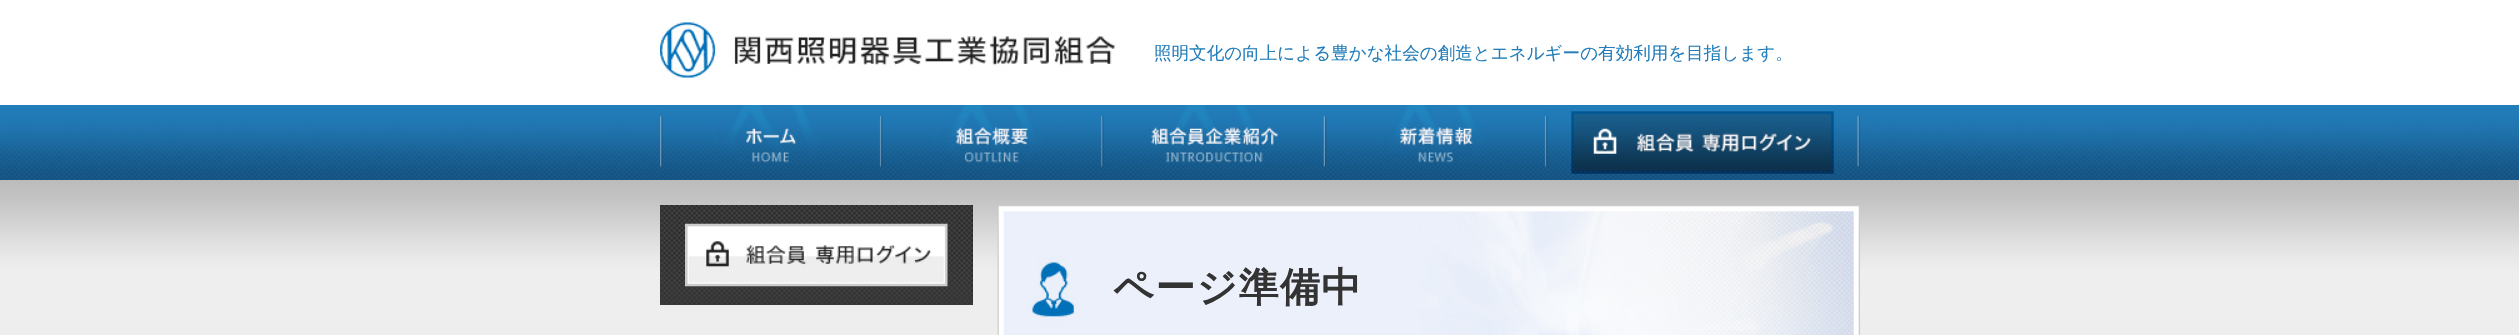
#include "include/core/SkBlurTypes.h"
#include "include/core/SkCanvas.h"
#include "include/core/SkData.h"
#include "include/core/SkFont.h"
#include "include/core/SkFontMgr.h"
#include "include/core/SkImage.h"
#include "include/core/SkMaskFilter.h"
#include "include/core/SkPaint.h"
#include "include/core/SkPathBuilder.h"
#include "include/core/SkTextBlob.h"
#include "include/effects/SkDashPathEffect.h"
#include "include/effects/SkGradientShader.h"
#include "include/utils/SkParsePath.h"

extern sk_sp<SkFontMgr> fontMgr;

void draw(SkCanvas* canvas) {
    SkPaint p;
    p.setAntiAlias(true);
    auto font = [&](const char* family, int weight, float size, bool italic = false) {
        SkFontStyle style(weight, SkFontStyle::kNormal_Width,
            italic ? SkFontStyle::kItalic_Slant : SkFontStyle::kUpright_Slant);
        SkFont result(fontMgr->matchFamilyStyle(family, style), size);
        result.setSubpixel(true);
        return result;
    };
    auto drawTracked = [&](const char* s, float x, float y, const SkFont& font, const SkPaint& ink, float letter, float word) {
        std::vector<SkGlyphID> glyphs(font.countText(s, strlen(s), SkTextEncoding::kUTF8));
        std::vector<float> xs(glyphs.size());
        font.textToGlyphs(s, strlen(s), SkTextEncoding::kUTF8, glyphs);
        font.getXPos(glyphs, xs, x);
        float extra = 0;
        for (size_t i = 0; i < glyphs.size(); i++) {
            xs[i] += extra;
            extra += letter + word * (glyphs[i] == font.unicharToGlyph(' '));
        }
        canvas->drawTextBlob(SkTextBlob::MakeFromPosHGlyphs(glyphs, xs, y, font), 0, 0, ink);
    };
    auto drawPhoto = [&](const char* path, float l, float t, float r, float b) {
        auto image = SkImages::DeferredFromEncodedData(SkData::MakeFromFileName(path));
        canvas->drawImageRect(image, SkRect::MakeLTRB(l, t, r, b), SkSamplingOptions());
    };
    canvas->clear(0xFFFFFFFF);
    drawPhoto("media/1.png", 660, 22, 1116, 79);
    auto font1 = font("WenQuanYi Zen Hei", 500, 17.55f);
    p.setColor(0xFF227DBA);
    canvas->drawString("照明文化の向上による豊かな社会の創造とエネルギーの有効利用を目指します。", 1154, 59, font1, p);
    drawPhoto("media/2.png", 0, 105, 2519, 180);
    drawPhoto("media/3.png", 660, 105, 882, 180);
    drawPhoto("media/4.png", 881, 105, 1103, 180);
    drawPhoto("media/5.png", 1102, 105, 1325, 180);
    drawPhoto("media/6.png", 1325, 105, 1547, 180);
    drawPhoto("media/7.png", 1546, 111, 1860, 180);
    drawPhoto("media/8.png", 0, 180, 2519, 335);
    p.setColor(0xFF2E2E2E);
    canvas->drawRect(SkRect::MakeLTRB(972, 205, 973, 305), p);
    drawPhoto("media/9.png", 660, 205, 973, 305);
    drawPhoto("media/10.png", 685, 223, 948, 287);
    drawPhoto("media/11.png", 997, 205, 1860, 335);
    auto font2 = font("WenQuanYi Zen Hei", 700, 40);
    p.setColor(0xFF333333);
    drawTracked("ページ準備中", 1113, 301, font2, p, 1.25f, 0);
}
